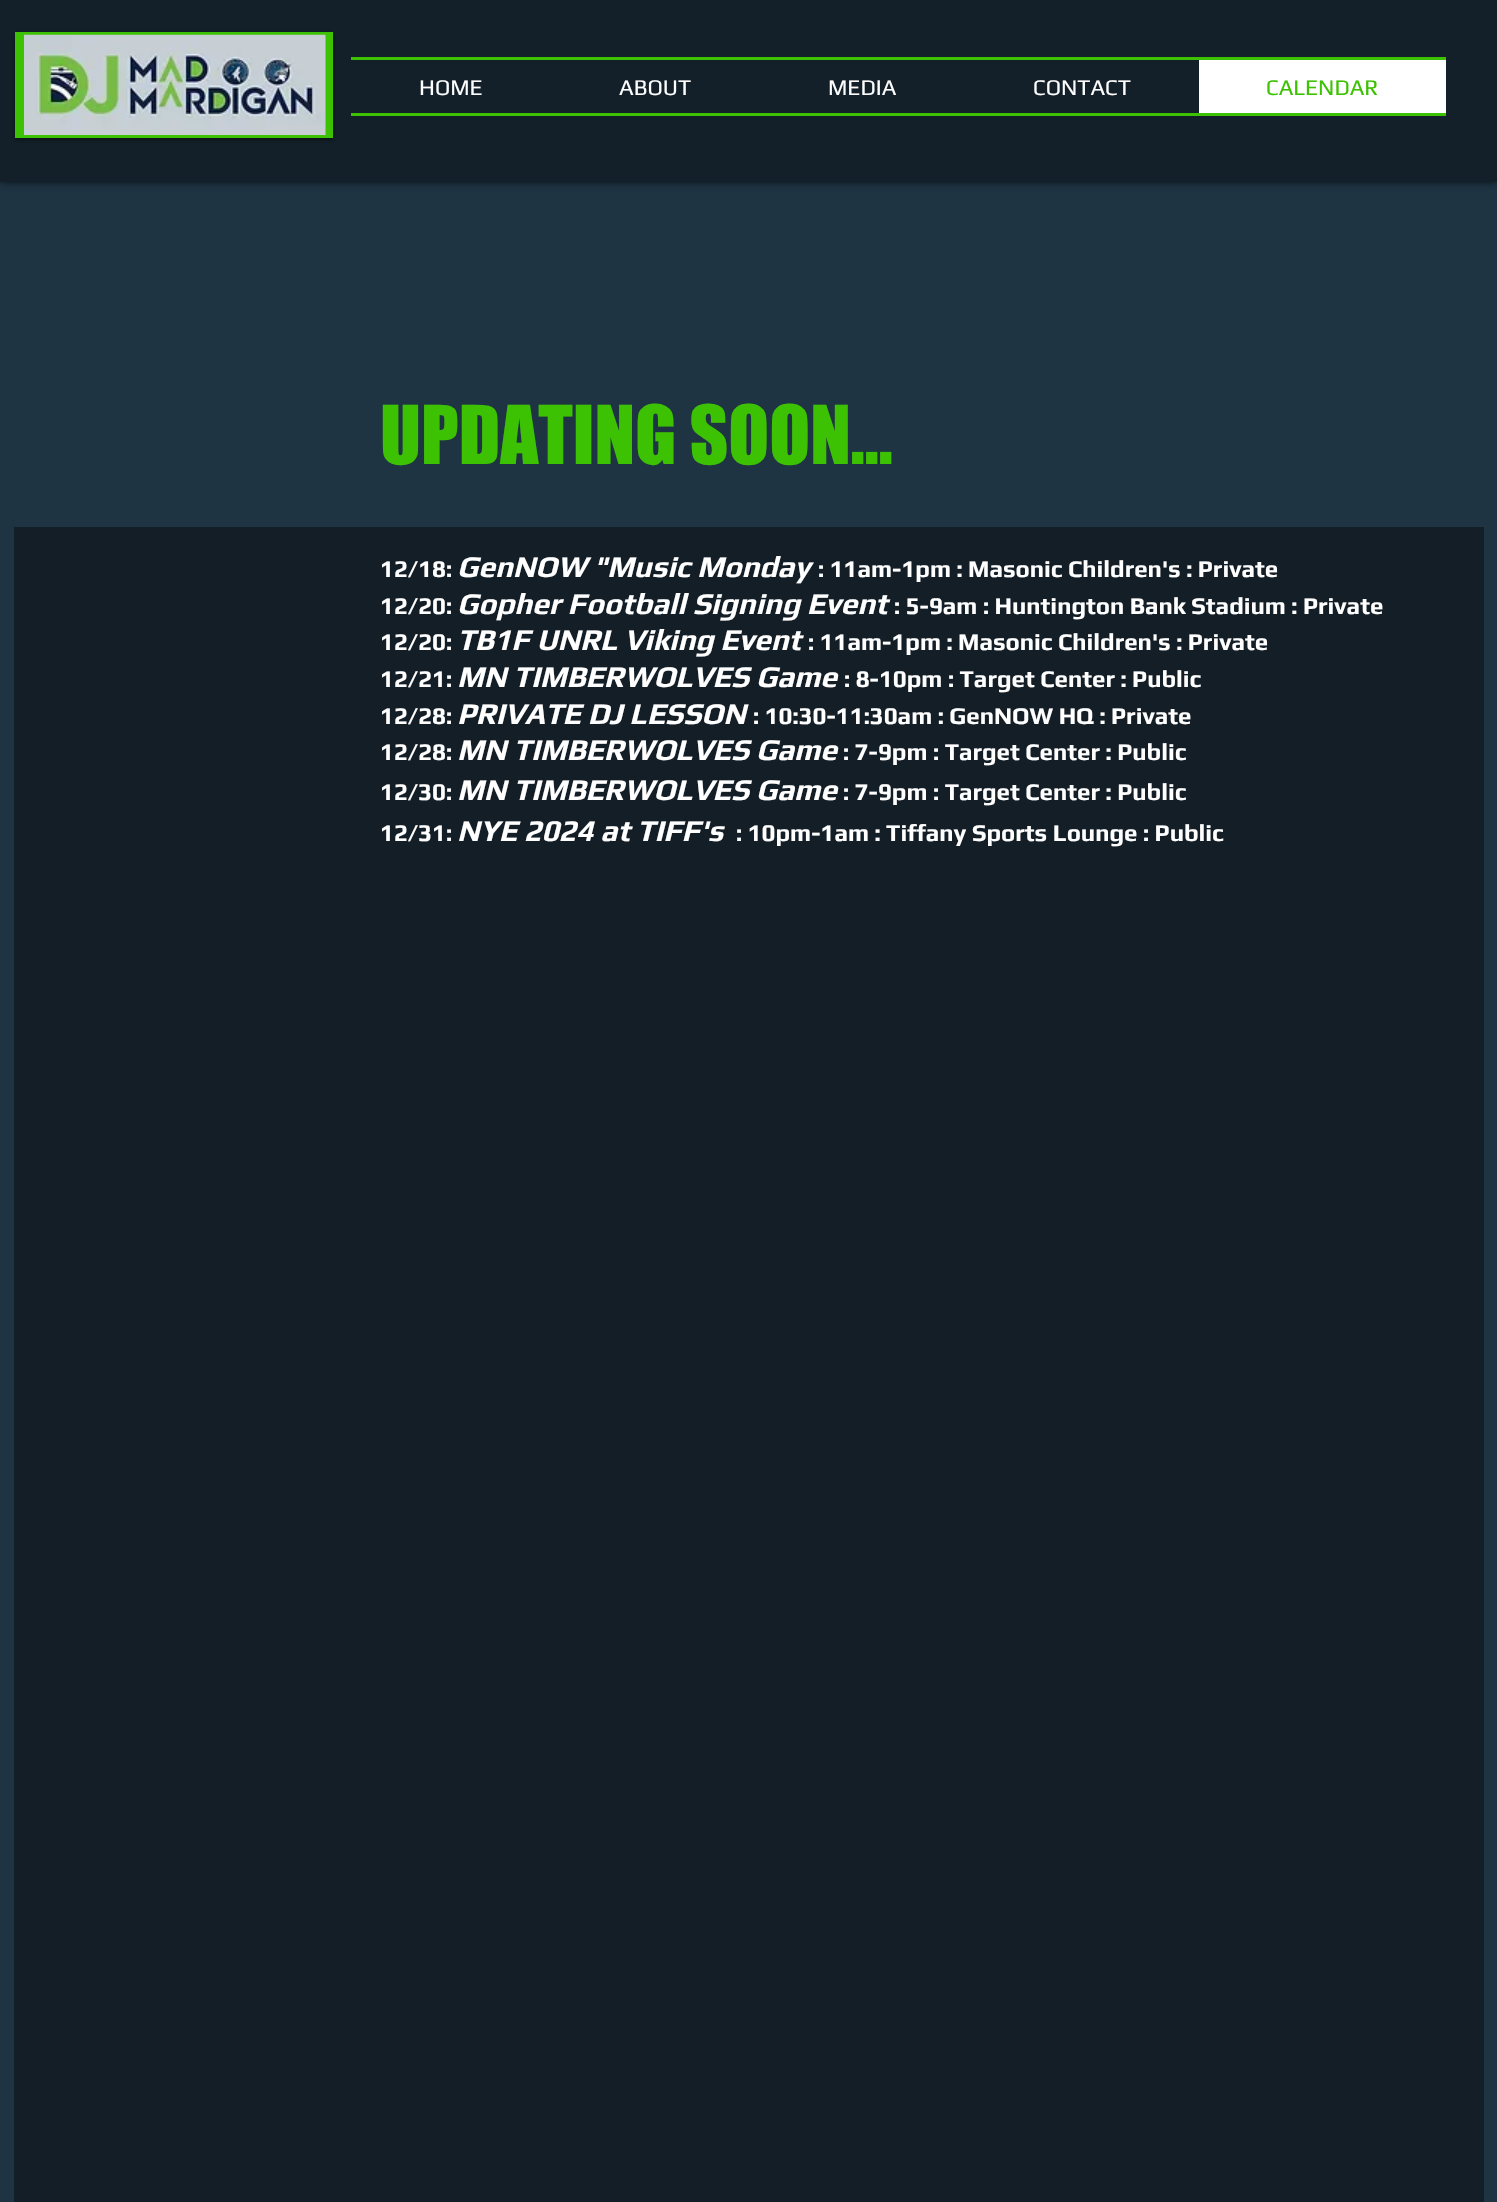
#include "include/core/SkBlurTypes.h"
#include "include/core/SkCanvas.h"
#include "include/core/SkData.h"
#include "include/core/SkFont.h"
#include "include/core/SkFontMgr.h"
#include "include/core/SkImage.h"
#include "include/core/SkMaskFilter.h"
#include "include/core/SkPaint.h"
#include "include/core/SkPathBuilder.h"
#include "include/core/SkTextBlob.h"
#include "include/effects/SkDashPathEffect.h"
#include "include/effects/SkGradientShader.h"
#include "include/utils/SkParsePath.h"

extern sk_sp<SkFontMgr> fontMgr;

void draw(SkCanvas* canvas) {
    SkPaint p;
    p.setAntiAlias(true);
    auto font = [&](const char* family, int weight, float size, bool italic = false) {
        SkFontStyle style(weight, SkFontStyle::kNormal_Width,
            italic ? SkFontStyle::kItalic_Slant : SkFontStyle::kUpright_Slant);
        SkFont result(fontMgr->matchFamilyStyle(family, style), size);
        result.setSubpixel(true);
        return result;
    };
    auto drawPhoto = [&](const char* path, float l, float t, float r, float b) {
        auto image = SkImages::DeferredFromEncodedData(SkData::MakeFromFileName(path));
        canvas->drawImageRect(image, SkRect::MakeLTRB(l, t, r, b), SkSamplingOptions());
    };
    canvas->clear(0xFF1E3443);
    canvas->save();
    canvas->clipPath(SkPathBuilder(SkPathFillType::kEvenOdd).moveTo(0, 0).lineTo(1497, 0).lineTo(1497, 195).lineTo(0, 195).close().moveTo(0, 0).lineTo(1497, 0).lineTo(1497, 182).lineTo(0, 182).close().detach(), true);
    p.setColor(0xB3000000);
    p.setMaskFilter(SkMaskFilter::MakeBlur(kNormal_SkBlurStyle, 4));
    canvas->drawRect(SkRect::MakeLTRB(0, 0, 1497, 182), p);
    p.setMaskFilter(nullptr);
    canvas->restore();
    p.setColor(0x63000000);
    canvas->drawRect(SkRect::MakeLTRB(0, 0, 1497, 182), p);
    p.setColor(0x80000000);
    p.setMaskFilter(SkMaskFilter::MakeBlur(kNormal_SkBlurStyle, 2));
    canvas->drawRoundRect(SkRect::MakeLTRB(15, 33, 333, 140), 1.5f, 1.5f, p);
    p.setMaskFilter(nullptr);
    p.setColor(0xFF3CC103);
    canvas->drawRect(SkRect::MakeLTRB(16.5f, 33.5f, 331.5f, 136.5f), p);
    p.setStyle(SkPaint::kStroke_Style);
    p.setStrokeWidth(3);
    canvas->drawRect(SkRect::MakeLTRB(16.5f, 33.5f, 331.5f, 136.5f), p);
    drawPhoto("media/1.png", 24, 34, 326, 135);
    p.setStyle(SkPaint::kFill_Style);
    canvas->drawRect(SkRect::MakeLTRB(351, 57, 1446, 60), p);
    canvas->drawRect(SkRect::MakeLTRB(351, 113, 1446, 116), p);
    auto font1 = font("Play", 400, 22.5f);
    p.setColor(0xFFFFFFFF);
    {
        const struct { const char* s; float x, y; } items[] = {
            {"HOME", 419, 95},
            {"ABOUT", 619, 95},
            {"MEDIA", 828, 95},
            {"CONTACT", 1033, 95},
        };
        for (auto [s, x, y] : items) {
            canvas->drawString(s, x, y, font1, p);
        }
    }
    canvas->drawRect(SkRect::MakeLTRB(1199, 60, 1446, 113), p);
    p.setColor(0xFF3CC103);
    canvas->drawString("CALENDAR", 1266, 95, font1, p);
    auto font2 = font("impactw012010", 400, 75);
    canvas->drawString("UPDATING SOON...", 380, 464, font2, p);
    p.setColor(0xFF131E27);
    canvas->drawRect(SkRect::MakeLTRB(14, 527, 1484, 2202), p);
    auto font3 = font("Play", 700, 24);
    p.setColor(0xFFFFFFFF);
    canvas->drawString("12/18:", 380, 577, font3, p);
    auto font4 = font("Play", 700, 30, true);
    canvas->drawString("GenNOW \"Music Monday", 457, 577, font4, p);
    canvas->drawString(": 11am-1pm : Masonic Children's : Private", 818, 577, font3, p);
    canvas->drawString("12/20:", 380, 614, font3, p);
    canvas->drawString("Gopher Football Signing Event", 457, 614, font4, p);
    canvas->drawString(": 5-9am : Huntington Bank Stadium : Private", 894, 614, font3, p);
    canvas->drawString("12/20:", 380, 650, font3, p);
    canvas->drawString("TB1F UNRL Viking Event", 457, 650, font4, p);
    canvas->drawString(": 11am-1pm : Masonic Children's : Private", 808, 650, font3, p);
    canvas->drawString("12/21:", 380, 687, font3, p);
    canvas->drawString("MN TIMBERWOLVES Game", 457, 687, font4, p);
    canvas->drawString(": 8-10pm : Target Center : Public", 844, 687, font3, p);
    canvas->drawString("12/28:", 380, 724, font3, p);
    canvas->drawString("PRIVATE DJ LESSON", 457, 724, font4, p);
    canvas->drawString(": 10:30-11:30am : GenNOW HQ : Private", 753, 724, font3, p);
    canvas->drawString("12/28:", 380, 760, font3, p);
    canvas->drawString("MN TIMBERWOLVES Game", 457, 760, font4, p);
    canvas->drawString(": 7-9pm : Target Center : Public", 843, 760, font3, p);
    canvas->drawString("12/30:", 380, 800, font3, p);
    canvas->drawString("MN TIMBERWOLVES Game", 457, 800, font4, p);
    canvas->drawString(": 7-9pm : Target Center : Public", 843, 800, font3, p);
    canvas->drawString("12/31:", 380, 841, font3, p);
    canvas->drawString("NYE 2024 at TIFF's", 457, 841, font4, p);
    canvas->drawString(": 10pm-1am : Tiffany Sports Lounge : Public", 736, 841, font3, p);
}
